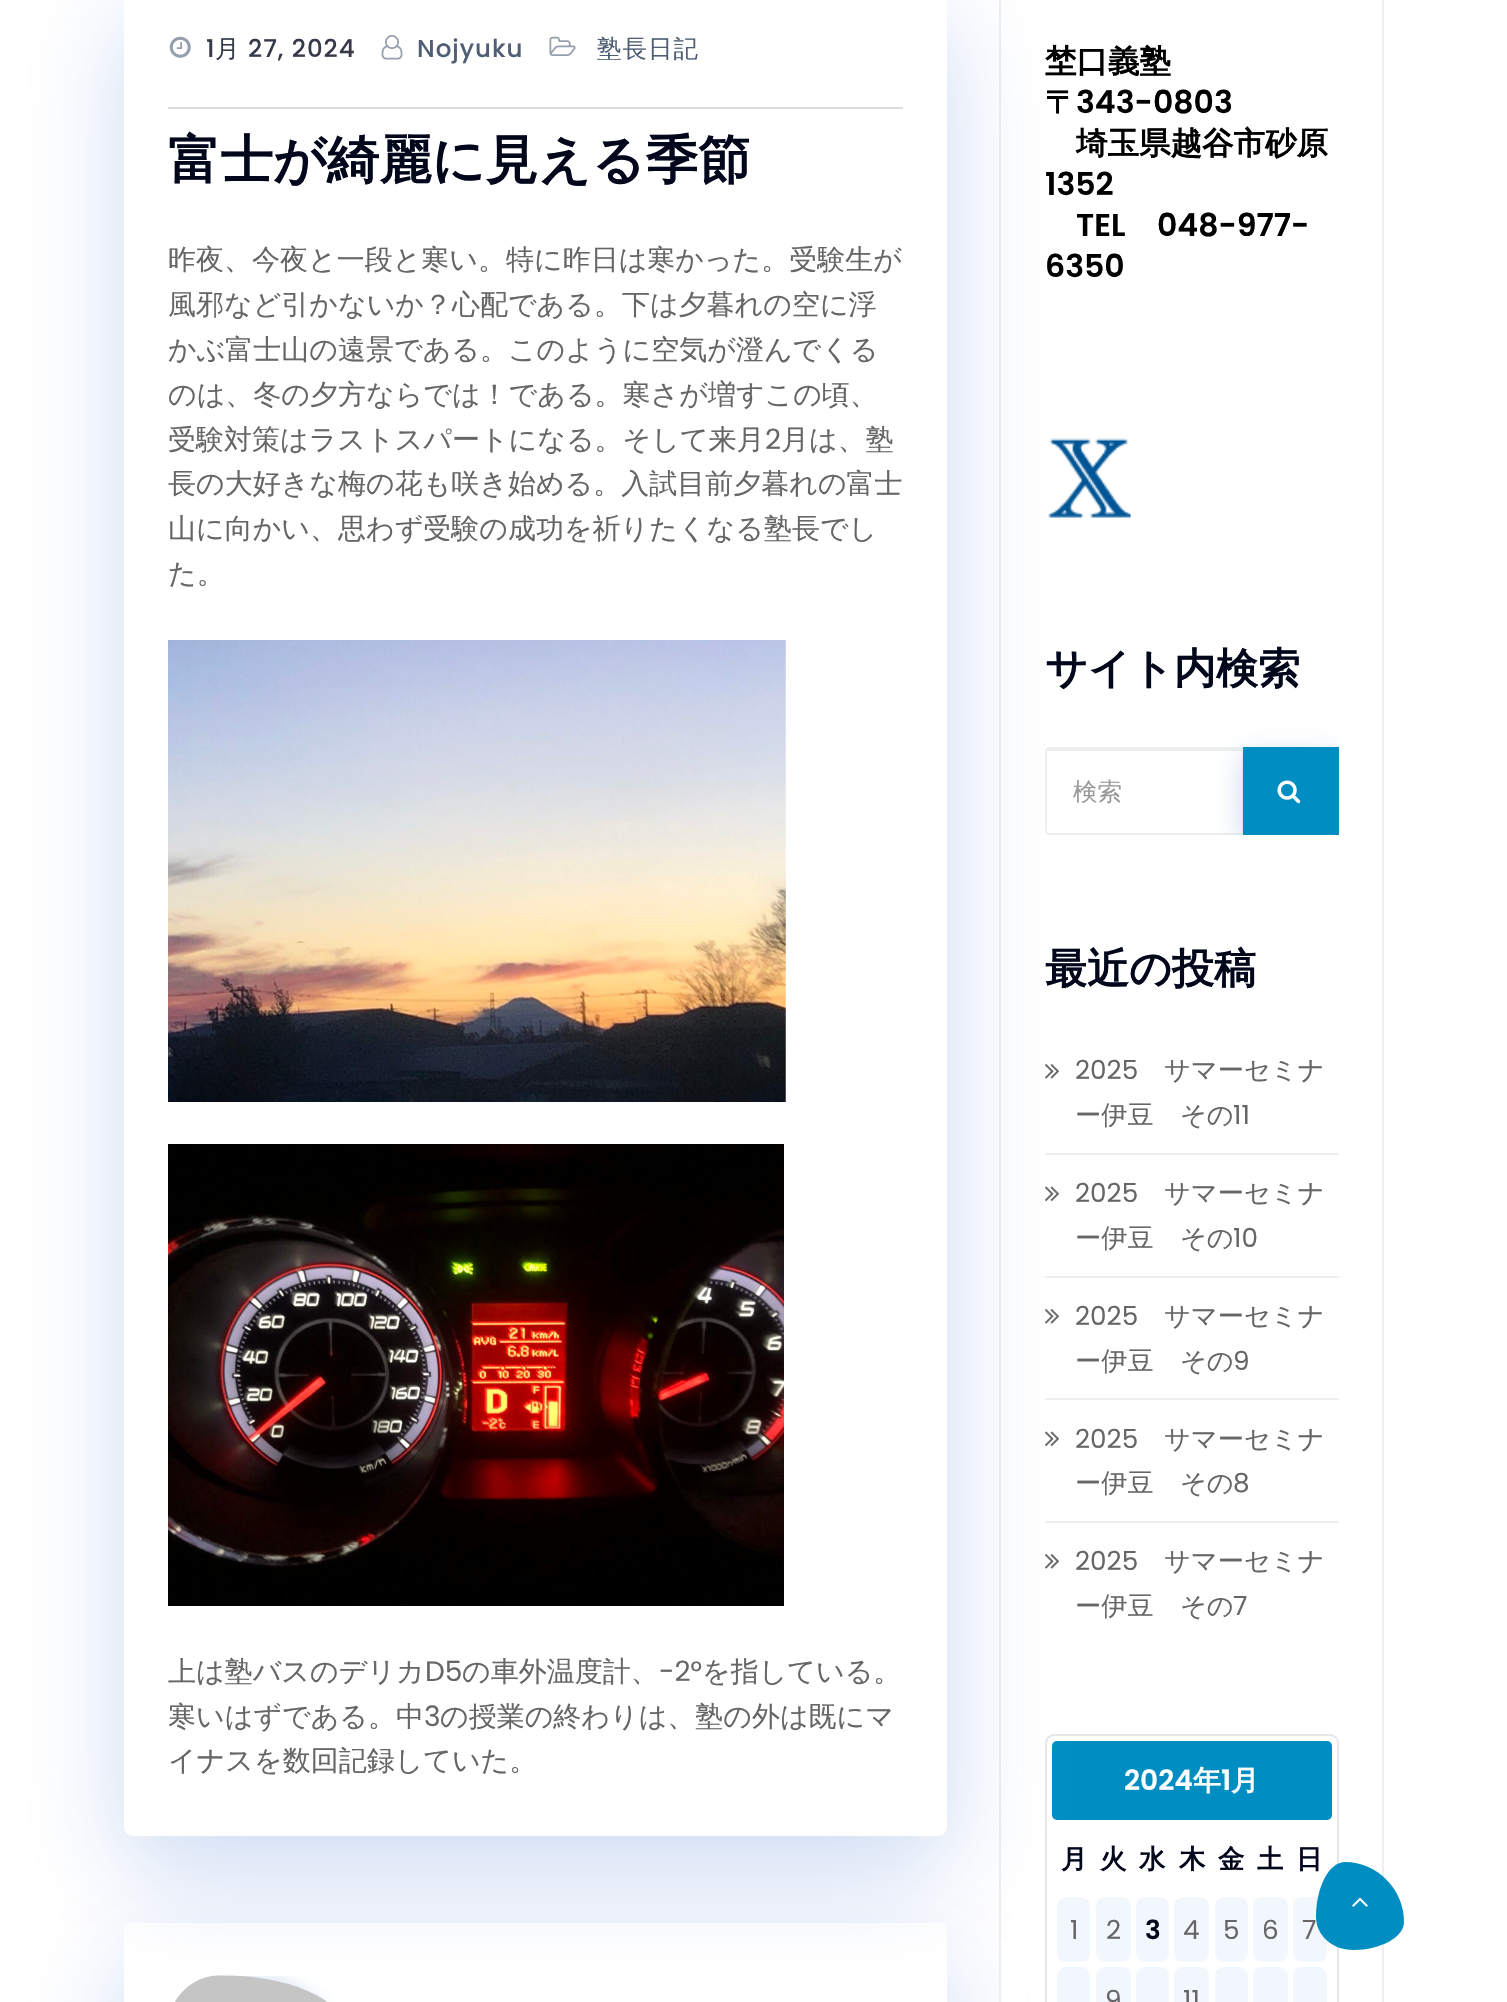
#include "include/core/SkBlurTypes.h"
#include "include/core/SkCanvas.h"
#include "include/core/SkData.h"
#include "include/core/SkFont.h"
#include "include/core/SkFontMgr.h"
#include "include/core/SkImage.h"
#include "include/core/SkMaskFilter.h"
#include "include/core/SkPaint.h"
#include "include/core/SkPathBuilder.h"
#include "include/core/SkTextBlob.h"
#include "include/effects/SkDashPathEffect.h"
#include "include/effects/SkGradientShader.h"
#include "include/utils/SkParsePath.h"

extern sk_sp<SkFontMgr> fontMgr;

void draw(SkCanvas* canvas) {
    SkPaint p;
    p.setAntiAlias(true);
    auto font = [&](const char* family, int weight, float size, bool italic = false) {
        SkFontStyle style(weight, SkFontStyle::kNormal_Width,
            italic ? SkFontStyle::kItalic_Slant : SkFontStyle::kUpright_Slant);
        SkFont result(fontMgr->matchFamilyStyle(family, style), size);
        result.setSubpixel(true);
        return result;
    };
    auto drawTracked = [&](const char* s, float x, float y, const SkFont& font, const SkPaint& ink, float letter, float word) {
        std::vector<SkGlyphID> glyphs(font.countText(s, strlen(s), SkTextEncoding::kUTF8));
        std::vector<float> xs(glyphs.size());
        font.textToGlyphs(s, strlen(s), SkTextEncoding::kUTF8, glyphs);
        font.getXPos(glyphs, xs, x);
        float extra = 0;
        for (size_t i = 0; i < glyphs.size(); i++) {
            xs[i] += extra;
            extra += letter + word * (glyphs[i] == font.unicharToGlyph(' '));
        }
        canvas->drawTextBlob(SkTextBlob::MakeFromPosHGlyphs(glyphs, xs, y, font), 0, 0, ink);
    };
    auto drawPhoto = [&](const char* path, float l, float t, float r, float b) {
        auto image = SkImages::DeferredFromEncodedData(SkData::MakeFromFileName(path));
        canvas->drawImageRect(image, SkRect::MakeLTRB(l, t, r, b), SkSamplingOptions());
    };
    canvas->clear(0xFFFFFFFF);
    p.setColor(0x33044BC2);
    p.setMaskFilter(SkMaskFilter::MakeBlur(kNormal_SkBlurStyle, 52.5f));
    canvas->drawRect(SkRect::MakeLTRB(124, 1958, 947, 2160), p);
    p.setMaskFilter(nullptr);
    p.setColor(0xFFFFFFFF);
    canvas->drawRect(SkRect::MakeLTRB(124, 1923, 947, 2002), p);
    canvas->save();
    canvas->clipRect(SkRect::MakeLTRB(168, 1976, 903, 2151));
    p.setColor(0x33407CBF);
    p.setMaskFilter(SkMaskFilter::MakeBlur(kNormal_SkBlurStyle, 8));
    canvas->drawRoundRect(SkRect::MakeLTRB(168, 1976, 343, 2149), 123, 123, p);
    p.setMaskFilter(nullptr);
    canvas->restore();
    drawPhoto("media/6.png", 175, 1975, 327, 2002);
    p.setColor(0xFFFFFFFF);
    canvas->drawRect(SkRect::MakeLTRB(1001, 1938, 1026, 2002), p);
    p.setStyle(SkPaint::kStroke_Style);
    p.setStrokeWidth(2);
    p.setColor(0xFFEEEEEE);
    canvas->drawRect(SkRect::MakeLTRB(1000, -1, 1383, 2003), p);
    drawPhoto("media/7.png", 1048, 438, 1131, 518);
    p.setStyle(SkPaint::kFill_Style);
    canvas->drawRect(SkRect::MakeLTRB(1045, 1153, 1339, 1155), p);
    drawPhoto("media/9.png", 1045, 1064, 1059, 1079);
    canvas->drawRect(SkRect::MakeLTRB(1045, 1276, 1339, 1278), p);
    drawPhoto("media/10.png", 1045, 1186, 1059, 1202);
    canvas->drawRect(SkRect::MakeLTRB(1045, 1398, 1339, 1400), p);
    drawPhoto("media/9.png", 1045, 1309, 1059, 1324);
    canvas->drawRect(SkRect::MakeLTRB(1045, 1521, 1339, 1523), p);
    drawPhoto("media/10.png", 1045, 1431, 1059, 1447);
    drawPhoto("media/9.png", 1045, 1554, 1059, 1569);
    p.setStyle(SkPaint::kStroke_Style);
    p.setColor(0xFFE4E8EA);
    canvas->drawRoundRect(SkRect::MakeLTRB(1046, 1735, 1338, 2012), 8, 8, p);
    p.setStyle(SkPaint::kFill_Style);
    p.setColor(0xFF008EC2);
    canvas->drawRoundRect(SkRect::MakeLTRB(1052, 1741, 1332, 1820), 5, 5, p);
    p.setColor(0xFFF2F7FD);
    canvas->drawRoundRect(SkRect::MakeLTRB(1057, 1897, 1090, 1962), 9, 9, p);
    canvas->drawRoundRect(SkRect::MakeLTRB(1096, 1897, 1131, 1962), 9, 9, p);
    canvas->drawRoundRect(SkRect::MakeLTRB(1057, 1967, 1090, 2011), 9, 9, p);
    canvas->drawRoundRect(SkRect::MakeLTRB(1096, 1967, 1131, 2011), 9, 9, p);
    p.setColor(0x33044BC2);
    p.setMaskFilter(SkMaskFilter::MakeBlur(kNormal_SkBlurStyle, 52.5f));
    canvas->drawRoundRect(SkRect::MakeLTRB(124, 21, 947, 1871), 9, 9, p);
    p.setMaskFilter(nullptr);
    p.setColor(0xFFFFFFFF);
    canvas->drawRoundRect(SkRect::MakeLTRB(124, -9, 947, 1836), 9, 9, p);
    p.setColor(0xFFDCDCDC);
    canvas->drawRect(SkRect::MakeLTRB(168, 107, 903, 109), p);
    drawPhoto("media/1.png", 169, 36, 191, 58);
    auto font1 = font("Poppins", 500, 24.5f);
    p.setColor(0xFF353949);
    drawTracked("1", 206, 57, font1, p, 1, 0);
    auto font2 = font("WenQuanYi Zen Hei", 500, 24.5f);
    drawTracked("月", 215, 57, font2, p, 1, 0);
    drawTracked("27, 2024", 248, 57, font1, p, 1, 0);
    drawPhoto("media/2.png", 381, 35, 403, 60);
    p.setColor(0xFF4F5E75);
    drawTracked("Nojyuku", 417, 57, font1, p, 1, 0);
    drawPhoto("media/3.png", 549, 36, 576, 56);
    drawTracked("塾長日記", 597, 57, font2, p, 1, 0);
    auto font3 = font("WenQuanYi Zen Hei", 700, 52.5f);
    p.setColor(0xFF02071B);
    canvas->drawString("富士が綺麗に見える季節", 168, 178, font3, p);
    auto font4 = font("WenQuanYi Zen Hei", 500, 28);
    p.setColor(0xFF666666);
    {
        const struct { const char* s; float x, y; } items[] = {
            {"昨夜、今夜と一段と寒い。特に昨日は寒かった。受験生が", 168, 269},
            {"風邪など引かないか？心配である。下は夕暮れの空に浮", 168, 314},
            {"かぶ富士山の遠景である。このように空気が澄んでくる", 168, 359},
            {"のは、冬の夕方ならでは！である。寒さが増すこの頃、", 168, 404},
            {"受験対策はラストスパートになる。そして来月", 168, 449},
        };
        for (auto [s, x, y] : items) {
            canvas->drawString(s, x, y, font4, p);
        }
    }
    auto font5 = font("Poppins", 400, 28);
    canvas->drawString("2", 765, 449, font5, p);
    {
        const struct { const char* s; float x, y; } items[] = {
            {"月は、塾", 781, 449},
            {"長の大好きな梅の花も咲き始める。入試目前夕暮れの富士", 168, 493},
            {"山に向かい、思わず受験の成功を祈りたくなる塾長でし", 168, 538},
            {"た。", 168, 583},
        };
        for (auto [s, x, y] : items) {
            canvas->drawString(s, x, y, font4, p);
        }
    }
    drawPhoto("media/4.png", 168, 640, 786, 1102);
    drawPhoto("media/5.png", 168, 1144, 784, 1606);
    canvas->drawString("上は塾バスのデリカ", 168, 1681, font4, p);
    canvas->drawString("D5", 425, 1681, font5, p);
    canvas->drawString("の車外温度計、", 462, 1681, font4, p);
    canvas->drawString("-2°", 659, 1681, font5, p);
    canvas->drawString("を指している。", 702, 1681, font4, p);
    canvas->drawString("寒いはずである。中", 168, 1726, font4, p);
    canvas->drawString("3", 424, 1726, font5, p);
    canvas->drawString("の授業の終わりは、塾の外は既にマ", 440, 1726, font4, p);
    canvas->drawString("イナスを数回記録していた。", 168, 1770, font4, p);
    auto font6 = font("WenQuanYi Zen Hei", 700, 31.5f);
    p.setColor(0xFF000000);
    canvas->drawString("埜口義塾", 1045, 72, font6, p);
    canvas->drawString("〒", 1045, 113, font6, p);
    auto font7 = font("Poppins", 600, 31.5f);
    canvas->drawString("343-0803", 1076, 113, font7, p);
    canvas->drawString("埼玉県越谷市砂原", 1076, 154, font6, p);
    {
        const struct { const char* s; float x, y; } items[] = {
            {"1352", 1045, 195},
            {"TEL", 1076, 236},
            {"048-977-", 1157, 236},
            {"6350", 1045, 277},
        };
        for (auto [s, x, y] : items) {
            canvas->drawString(s, x, y, font7, p);
        }
    }
    auto font8 = font("WenQuanYi Zen Hei", 700, 42);
    p.setColor(0xFF02071B);
    canvas->drawString("サイト内検索", 1045, 683, font8, p);
    p.setColor(0xFFECECEC);
    canvas->drawPath(SkPathBuilder().moveTo(1048, 751).lineTo(1242, 751).lineTo(1242, 833).lineTo(1243, 833).lineTo(1243, 749).lineTo(1049, 749).cubicTo(1048, 749, 1047, 750, 1047, 751).close().detach(), p);
    p.setStyle(SkPaint::kStroke_Style);
    p.setColor(0xFFEEEEEE);
    canvas->drawPath(SkPathBuilder().moveTo(1049, 748).lineTo(1243, 748).lineTo(1243, 834).lineTo(1049, 834).cubicTo(1047.5f, 834, 1046, 832.5f, 1046, 831).lineTo(1046, 751).cubicTo(1046, 749.5f, 1047.5f, 748, 1049, 748).close().detach(), p);
    p.setStyle(SkPaint::kFill_Style);
    p.setColor(0xFF999999);
    canvas->drawString("検索", 1073, 800, font2, p);
    p.setColor(0xFF008EC2);
    canvas->drawRect(SkRect::MakeLTRB(1330, 747, 1339, 835), p);
    canvas->save();
    canvas->clipRect(SkRect::MakeLTRB(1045, 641, 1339, 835));
    p.setColor(0x4D407CBF);
    p.setMaskFilter(SkMaskFilter::MakeBlur(kNormal_SkBlurStyle, 14));
    canvas->drawRoundRect(SkRect::MakeLTRB(1243, 756, 1337, 844), 7, 7, p);
    p.setMaskFilter(nullptr);
    canvas->restore();
    p.setColor(0xFF008EC2);
    canvas->drawPath(SkPathBuilder().moveTo(1243, 747).lineTo(1330, 747).cubicTo(1334, 747, 1337, 750, 1337, 754).lineTo(1337, 828).cubicTo(1337, 832, 1334, 835, 1330, 835).lineTo(1243, 835).close().detach(), p);
    drawPhoto("media/8.png", 1277, 780, 1301, 804);
    p.setColor(0xFF02071B);
    canvas->drawString("最近の投稿", 1045, 983, font8, p);
    auto font9 = font("Poppins", 400, 26.25f);
    p.setColor(0xFF666666);
    canvas->drawString("2025", 1075, 1079, font9, p);
    auto font10 = font("WenQuanYi Zen Hei", 500, 26.25f);
    canvas->drawString("サマーセミナ", 1164, 1079, font10, p);
    canvas->drawString("ー伊豆　その", 1075, 1124, font10, p);
    canvas->drawString("11", 1233, 1124, font9, p);
    canvas->drawString("2025", 1075, 1202, font9, p);
    canvas->drawString("サマーセミナ", 1164, 1202, font10, p);
    canvas->drawString("ー伊豆　その", 1075, 1247, font10, p);
    canvas->drawString("10", 1233, 1247, font9, p);
    canvas->drawString("2025", 1075, 1325, font9, p);
    canvas->drawString("サマーセミナ", 1164, 1325, font10, p);
    canvas->drawString("ー伊豆　その", 1075, 1370, font10, p);
    canvas->drawString("9", 1233, 1370, font9, p);
    canvas->drawString("2025", 1075, 1448, font9, p);
    canvas->drawString("サマーセミナ", 1164, 1448, font10, p);
    canvas->drawString("ー伊豆　その", 1075, 1492, font10, p);
    canvas->drawString("8", 1233, 1492, font9, p);
    canvas->drawString("2025", 1075, 1570, font9, p);
    canvas->drawString("サマーセミナ", 1164, 1570, font10, p);
    canvas->drawString("ー伊豆　その", 1075, 1615, font10, p);
    canvas->drawString("7", 1233, 1615, font9, p);
    auto font11 = font("Poppins", 600, 28);
    p.setColor(0xFFFFFFFF);
    canvas->drawString("2024", 1124, 1790, font11, p);
    auto font12 = font("WenQuanYi Zen Hei", 700, 28);
    canvas->drawString("年", 1193, 1790, font12, p);
    canvas->drawString("1", 1221, 1790, font11, p);
    canvas->drawString("月", 1231, 1790, font12, p);
    auto font13 = font("WenQuanYi Zen Hei", 700, 26.25f);
    p.setColor(0xFF02071B);
    {
        const struct { const char* s; float x, y; } items[] = {
            {"月", 1061, 1868},
            {"火", 1100, 1868},
            {"水", 1139, 1868},
            {"木", 1179, 1868},
            {"金", 1218, 1868},
            {"土", 1257, 1868},
            {"日", 1296, 1868},
        };
        for (auto [s, x, y] : items) {
            canvas->drawString(s, x, y, font13, p);
        }
    }
    p.setColor(0xFF666666);
    canvas->drawString("1", 1070, 1939, font9, p);
    canvas->drawString("2", 1106, 1939, font9, p);
    p.setColor(0xFFF2F7FD);
    canvas->drawRoundRect(SkRect::MakeLTRB(1136, 1897, 1169, 1962), 9, 9, p);
    auto font14 = font("Poppins", 600, 26.25f);
    p.setColor(0xFF02071B);
    canvas->drawString("3", 1145, 1939, font14, p);
    p.setColor(0xFFF2F7FD);
    canvas->drawRoundRect(SkRect::MakeLTRB(1174, 1897, 1209, 1962), 9, 9, p);
    p.setColor(0xFF666666);
    canvas->drawString("4", 1183, 1939, font9, p);
    p.setColor(0xFFF2F7FD);
    canvas->drawRoundRect(SkRect::MakeLTRB(1215, 1897, 1248, 1962), 9, 9, p);
    p.setColor(0xFF666666);
    canvas->drawString("5", 1223, 1939, font9, p);
    p.setColor(0xFFF2F7FD);
    canvas->drawRoundRect(SkRect::MakeLTRB(1253, 1897, 1288, 1962), 9, 9, p);
    p.setColor(0xFF666666);
    canvas->drawString("6", 1262, 1939, font9, p);
    p.setColor(0xFFF2F7FD);
    canvas->drawRoundRect(SkRect::MakeLTRB(1293, 1897, 1327, 1962), 9, 9, p);
    p.setColor(0xFF666666);
    canvas->drawString("7", 1302, 1939, font9, p);
    canvas->drawString("9", 1105, 2009, font9, p);
    p.setColor(0xFFF2F7FD);
    canvas->drawRoundRect(SkRect::MakeLTRB(1136, 1967, 1169, 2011), 9, 9, p);
    canvas->drawRoundRect(SkRect::MakeLTRB(1174, 1967, 1209, 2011), 9, 9, p);
    p.setColor(0xFF666666);
    canvas->drawString("11", 1183, 2009, font9, p);
    p.setColor(0xFFF2F7FD);
    canvas->drawRoundRect(SkRect::MakeLTRB(1215, 1967, 1248, 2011), 9, 9, p);
    canvas->drawRoundRect(SkRect::MakeLTRB(1253, 1967, 1288, 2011), 9, 9, p);
    canvas->drawRoundRect(SkRect::MakeLTRB(1293, 1967, 1327, 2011), 9, 9, p);
    p.setColor(0xFF008EC2);
    canvas->drawPath(SkPathBuilder().moveTo(1345, 1862).cubicTo(1377, 1862, 1404, 1889, 1404, 1922).cubicTo(1404, 1937, 1381, 1950, 1353, 1950).cubicTo(1332, 1950, 1316, 1935, 1316, 1917).cubicTo(1316, 1887, 1329, 1862, 1345, 1862).close().detach(), p);
    drawPhoto("media/11.png", 1352, 1897, 1368, 1907);
}
